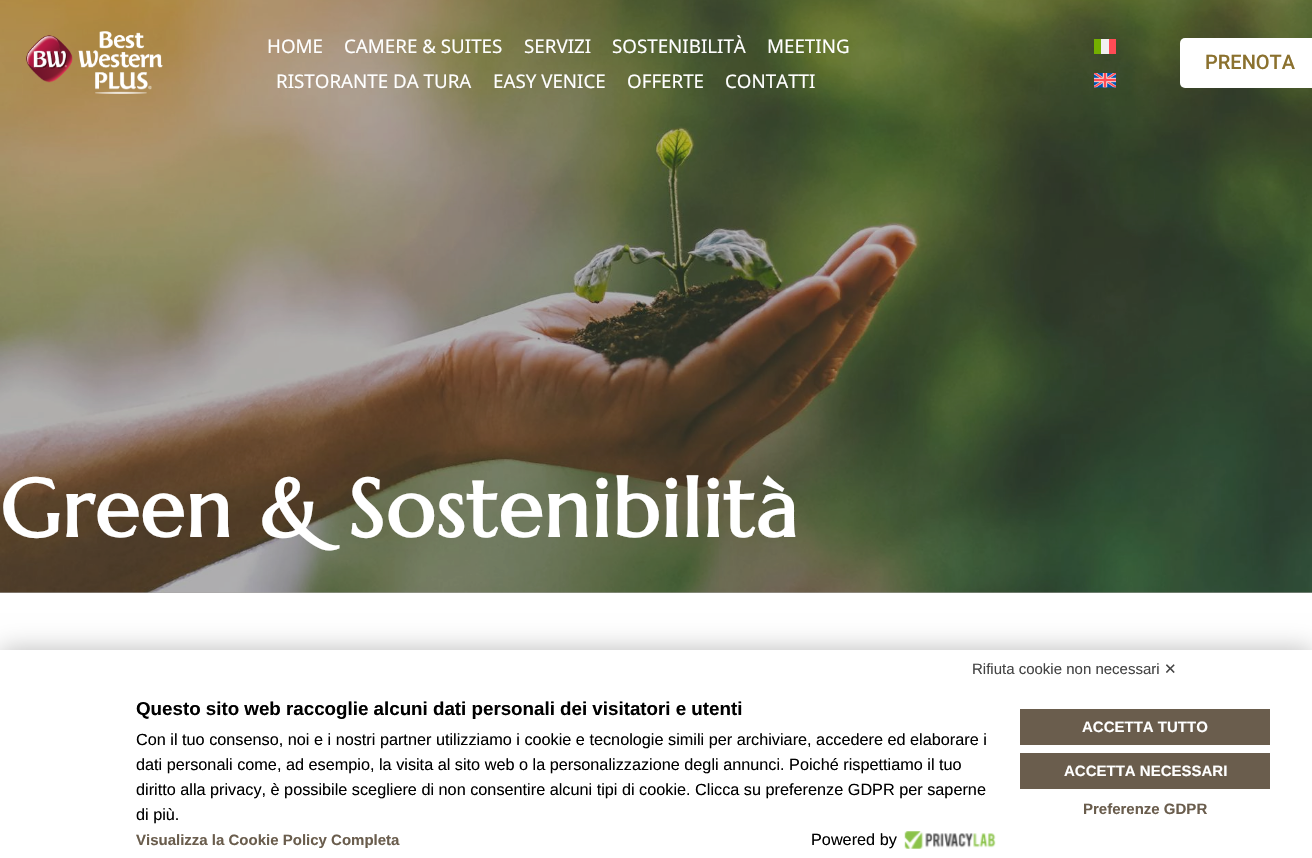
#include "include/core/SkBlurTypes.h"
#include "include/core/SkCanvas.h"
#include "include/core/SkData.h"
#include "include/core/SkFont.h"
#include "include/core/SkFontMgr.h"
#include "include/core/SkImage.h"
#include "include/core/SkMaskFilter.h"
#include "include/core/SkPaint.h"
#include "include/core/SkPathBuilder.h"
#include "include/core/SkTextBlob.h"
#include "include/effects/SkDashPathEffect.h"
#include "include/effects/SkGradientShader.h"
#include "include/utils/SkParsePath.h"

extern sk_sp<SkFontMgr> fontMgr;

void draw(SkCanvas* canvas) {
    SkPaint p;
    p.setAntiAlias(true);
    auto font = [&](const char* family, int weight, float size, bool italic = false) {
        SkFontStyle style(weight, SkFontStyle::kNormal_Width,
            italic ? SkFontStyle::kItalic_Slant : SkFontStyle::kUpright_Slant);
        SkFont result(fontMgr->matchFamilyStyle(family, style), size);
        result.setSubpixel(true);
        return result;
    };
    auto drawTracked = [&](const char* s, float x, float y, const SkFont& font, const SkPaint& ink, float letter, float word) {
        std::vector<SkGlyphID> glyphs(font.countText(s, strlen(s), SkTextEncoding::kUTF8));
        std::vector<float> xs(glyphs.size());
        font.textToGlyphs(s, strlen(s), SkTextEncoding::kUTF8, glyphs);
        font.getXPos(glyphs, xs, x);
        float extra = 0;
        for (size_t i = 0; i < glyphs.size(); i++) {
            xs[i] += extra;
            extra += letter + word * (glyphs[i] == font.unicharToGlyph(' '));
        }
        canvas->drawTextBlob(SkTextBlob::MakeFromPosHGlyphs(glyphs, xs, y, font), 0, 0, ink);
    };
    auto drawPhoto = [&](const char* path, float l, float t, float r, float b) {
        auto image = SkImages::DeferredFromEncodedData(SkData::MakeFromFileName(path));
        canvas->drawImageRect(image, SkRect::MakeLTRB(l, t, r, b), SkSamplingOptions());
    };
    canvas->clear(0xFFFFFFFF);
    p.setColor(0xFFAAA8A6);
    canvas->drawRect(SkRect::MakeLTRB(0, 592, 1312, 593), p);
    drawPhoto("media/3.png", 0, 0, 1312, 593);
    drawPhoto("media/1.png", 26, 31, 163, 94);
    auto font1 = font("Noto Sans", 400, 18.75f);
    p.setColor(0xFFFFFFFF);
    {
        const struct { const char* s; float x, y; } items[] = {
            {"HOME", 267, 53},
            {"CAMERE & SUITES", 344, 53},
            {"SERVIZI", 524, 53},
            {"SOSTENIBILITÀ", 612, 53},
            {"MEETING", 767, 53},
            {"RISTORANTE DA TURA", 276, 88},
            {"EASY VENICE", 493, 88},
            {"OFFERTE", 627, 88},
            {"CONTATTI", 725, 88},
        };
        for (auto [s, x, y] : items) {
            canvas->drawString(s, x, y, font1, p);
        }
    }
    {
        const struct { float l, t, r, b; SkColor color; } items[] = {
            {1094, 39, 1101, 54, 0xFF73AF00},
            {1101, 39, 1109, 54, 0xFFF0F0F0},
            {1109, 39, 1116, 54, 0xFFFF4B55},
        };
        for (auto [l, t, r, b, color] : items) {
            p.setColor(color);
            canvas->drawRect(SkRect::MakeLTRB(l, t, r, b), p);
        }
    }
    drawPhoto("media/2.png", 1094, 73, 1116, 88);
    p.setColor(0xFFFFFFFF);
    canvas->drawRoundRect(SkRect::MakeLTRB(1180, 38, 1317, 88), 5, 5, p);
    auto font2 = font("Roboto", 500, 20);
    p.setColor(0xFF8B712E);
    canvas->drawString("PRENOTA", 1205, 69, font2, p);
    auto font3 = font("Marcellus", 700, 81.25f);
    p.setColor(0xFFFFFFFF);
    drawTracked("Green & Sostenibilità", 0, 537, font3, p, 1.25f, 0);
    p.setColor(0x45000000);
    p.setMaskFilter(SkMaskFilter::MakeBlur(kNormal_SkBlurStyle, 12.5f));
    canvas->drawRect(SkRect::MakeLTRB(0, 650, 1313, 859), p);
    p.setMaskFilter(nullptr);
    p.setColor(0xFFFFFFFF);
    canvas->drawRect(SkRect::MakeLTRB(0, 650, 1312, 858), p);
    auto font4 = font("Liberation Sans", 400, 15);
    p.setColor(0xFF444444);
    canvas->drawString("Rifiuta cookie non necessari", 972, 674, font4, p);
    auto font5 = font("DejaVu Sans", 400, 15);
    canvas->drawString("✕", 1164, 674, font5, p);
    auto font6 = font("Liberation Sans", 700, 18.75f);
    p.setColor(0xFF000000);
    canvas->drawString("Questo sito web raccoglie alcuni dati personali dei visitatori e utenti", 136, 715, font6, p);
    auto font7 = font("Liberation Sans", 400, 16.25f);
    {
        const struct { const char* s; float x, y; } items[] = {
            {"Con il tuo consenso, noi e i nostri partner utilizziamo i cookie e tecnologie simili per archiviare, accedere ed elaborare i", 136, 745},
            {"dati personali come, ad esempio, la visita al sito web o la personalizzazione degli annunci. Poiché rispettiamo il tuo", 136, 770},
            {"diritto alla privacy, è possibile scegliere di non consentire alcuni tipi di cookie. Clicca su preferenze GDPR per saperne", 136, 795},
            {"di più.", 136, 820},
        };
        for (auto [s, x, y] : items) {
            canvas->drawString(s, x, y, font7, p);
        }
    }
    auto font8 = font("Liberation Sans", 700, 15);
    p.setColor(0xFF6A5D4D);
    canvas->drawString("Visualizza la Cookie Policy Completa", 136, 845, font8, p);
    p.setColor(0xFF000000);
    canvas->drawString("Powered by", 811, 845, font7, p);
    drawPhoto("media/4.png", 904, 831, 996, 849);
    p.setColor(0xFF6A5D4D);
    canvas->drawRect(SkRect::MakeLTRB(1020, 709, 1270, 745), p);
    p.setColor(0xFFFFFFFF);
    canvas->drawString("ACCETTA TUTTO", 1082, 732, font8, p);
    p.setColor(0xFF6A5D4D);
    canvas->drawRect(SkRect::MakeLTRB(1020, 753, 1270, 789), p);
    p.setColor(0xFFFFFFFF);
    canvas->drawString("ACCETTA NECESSARI", 1064, 776, font8, p);
    p.setColor(0xFF6A5D4D);
    canvas->drawString("Preferenze GDPR", 1083, 814, font8, p);
}
